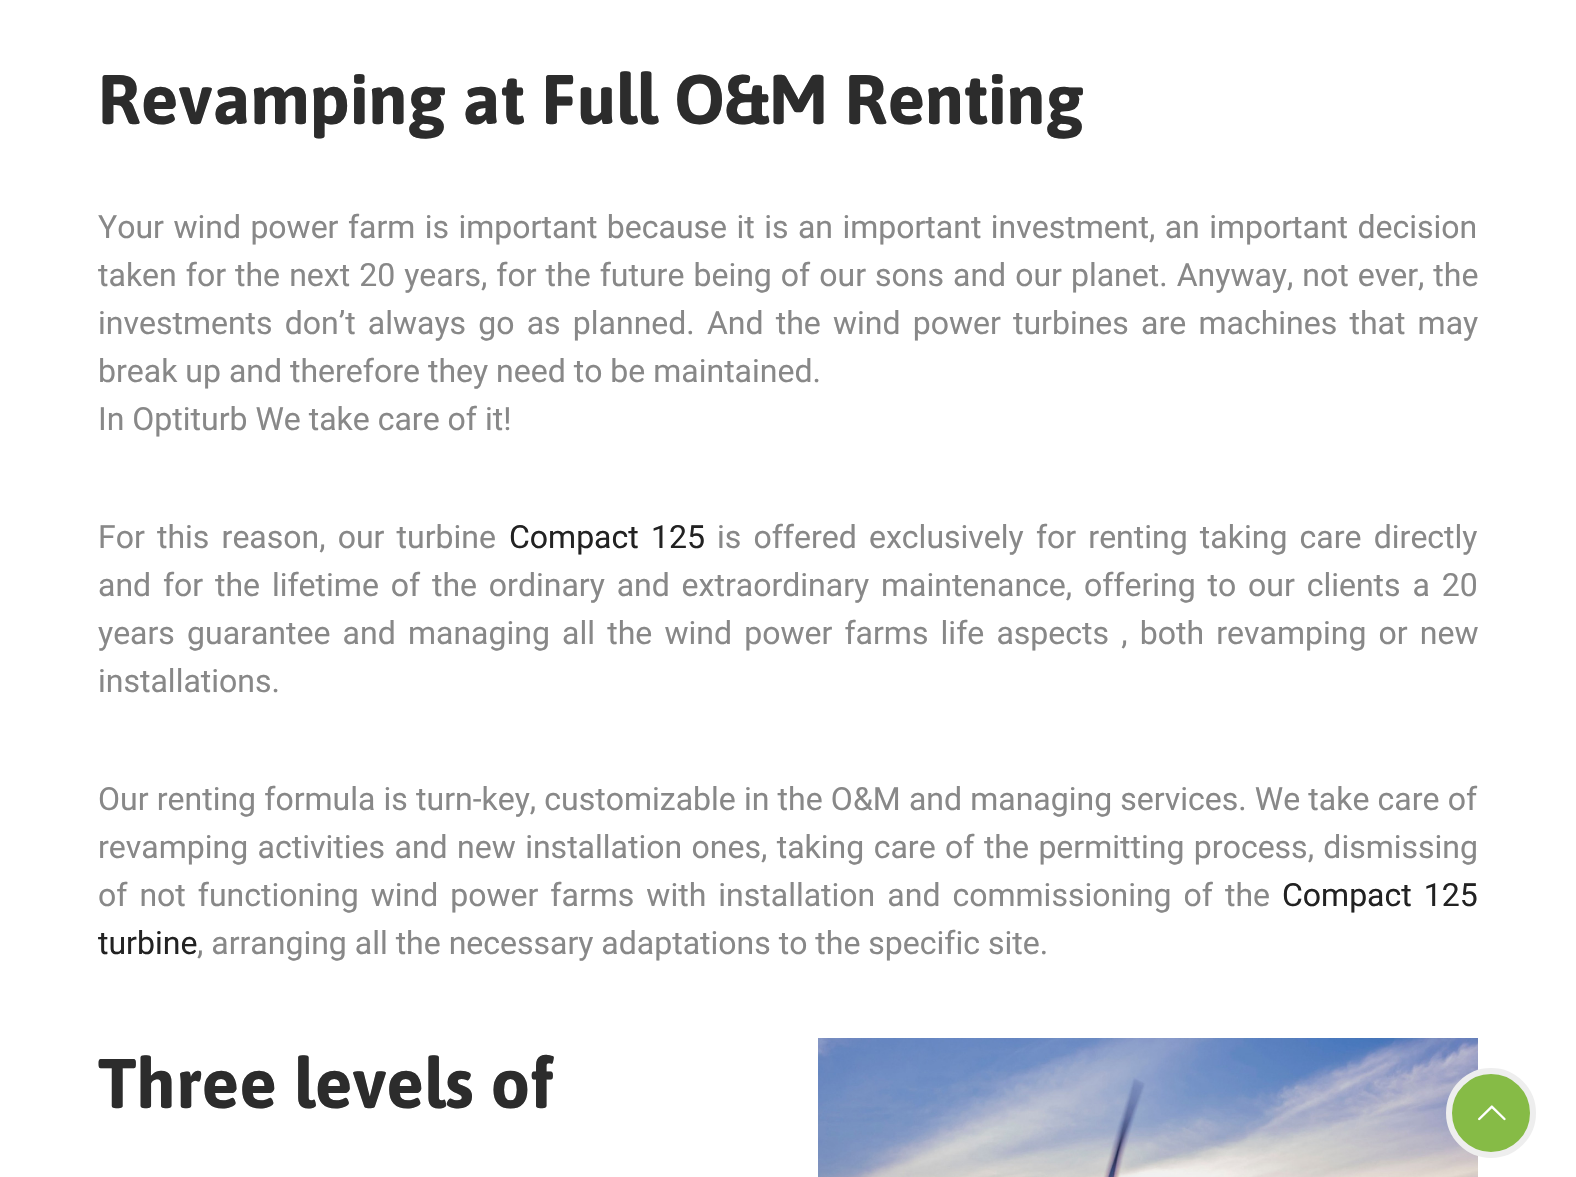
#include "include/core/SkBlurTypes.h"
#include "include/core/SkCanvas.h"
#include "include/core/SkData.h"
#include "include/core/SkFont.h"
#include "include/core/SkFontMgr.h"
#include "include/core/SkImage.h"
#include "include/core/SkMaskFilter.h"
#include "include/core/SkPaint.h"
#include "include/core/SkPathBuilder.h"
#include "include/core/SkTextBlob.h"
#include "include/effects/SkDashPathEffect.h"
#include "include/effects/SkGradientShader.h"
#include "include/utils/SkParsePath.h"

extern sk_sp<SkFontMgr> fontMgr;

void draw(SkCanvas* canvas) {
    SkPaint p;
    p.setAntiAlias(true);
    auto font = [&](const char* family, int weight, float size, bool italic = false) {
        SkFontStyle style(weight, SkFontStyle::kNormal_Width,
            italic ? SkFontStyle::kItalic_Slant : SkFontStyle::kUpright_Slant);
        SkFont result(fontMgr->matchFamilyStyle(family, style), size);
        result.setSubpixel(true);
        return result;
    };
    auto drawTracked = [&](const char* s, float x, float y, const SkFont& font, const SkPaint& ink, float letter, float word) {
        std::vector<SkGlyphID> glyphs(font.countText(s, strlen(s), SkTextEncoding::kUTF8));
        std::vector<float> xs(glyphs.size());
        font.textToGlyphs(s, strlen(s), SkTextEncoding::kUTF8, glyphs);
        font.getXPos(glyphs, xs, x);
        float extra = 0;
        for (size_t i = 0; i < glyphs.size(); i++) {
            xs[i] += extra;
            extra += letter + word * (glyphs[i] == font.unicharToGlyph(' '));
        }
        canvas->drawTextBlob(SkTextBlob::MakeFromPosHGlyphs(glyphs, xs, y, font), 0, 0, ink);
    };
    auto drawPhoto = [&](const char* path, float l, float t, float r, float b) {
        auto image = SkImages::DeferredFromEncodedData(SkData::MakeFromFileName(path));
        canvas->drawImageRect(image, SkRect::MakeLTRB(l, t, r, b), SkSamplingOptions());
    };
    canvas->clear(0xFFFFFFFF);
    auto font1 = font("Asap", 700, 70);
    p.setColor(0xFF2C2C2C);
    canvas->drawString("Revamping at Full O&M Renting", 98, 124, font1, p);
    auto font2 = font("Roboto", 400, 32);
    p.setColor(0xFF888888);
    drawTracked("Your wind power farm is important because it is an important investment, an important decision", 98, 238, font2, p, 0, 1.5f);
    drawTracked("taken for the next 20 years, for the future being of our sons and our planet. Anyway, not ever, the", 98, 286, font2, p, 0, 1.1f);
    drawTracked("investments don’t always go as planned. And the wind power turbines are machines that may", 98, 334, font2, p, 0, 4.25f);
    canvas->drawString("break up and therefore they need to be maintained.", 98, 382, font2, p);
    canvas->drawString("In Optiturb We take care of it!", 98, 430, font2, p);
    drawTracked("For this reason, our turbine", 98, 548, font2, p, 0, 4.25f);
    p.setColor(0xFF222222);
    drawTracked("Compact 125", 509, 548, font2, p, 0, 4.25f);
    p.setColor(0xFF888888);
    drawTracked("is offered exclusively for renting taking care directly", 717, 548, font2, p, 0, 4.25f);
    drawTracked("and for the lifetime of the ordinary and extraordinary maintenance, offering to our clients a 20", 98, 596, font2, p, 0, 3.9f);
    drawTracked("years guarantee and managing all the wind power farms life aspects , both revamping or new", 98, 644, font2, p, 0, 4.25f);
    canvas->drawString("installations.", 98, 692, font2, p);
    drawTracked("Our renting formula is turn-key, customizable in the O&M and managing services. We take care of", 98, 810, font2, p, 0, 0.25f);
    drawTracked("revamping activities and new installation ones, taking care of the permitting process, dismissing", 98, 858, font2, p, 0, 1.5f);
    drawTracked("of not functioning wind power farms with installation and commissioning of the", 98, 906, font2, p, 0, 4.1f);
    p.setColor(0xFF222222);
    drawTracked("Compact 125", 1282, 906, font2, p, 0, 4.1f);
    canvas->drawString("turbine", 98, 954, font2, p);
    p.setColor(0xFF888888);
    canvas->drawString(", arranging all the necessary adaptations to the specific site.", 197, 954, font2, p);
    p.setColor(0xFF2C2C2C);
    canvas->drawString("Three levels of", 98, 1108, font1, p);
    drawPhoto("media/1.png", 818, 1038, 1478, 1177);
    p.setColor(0xFF86BB46);
    canvas->drawCircle(1491, 1113, 42, p);
    p.setStyle(SkPaint::kStroke_Style);
    p.setStrokeWidth(6);
    p.setColor(0xFFEEEEEE);
    canvas->drawCircle(1491, 1113, 42, p);
    drawPhoto("media/2.png", 1478, 1105, 1506, 1121);
}
